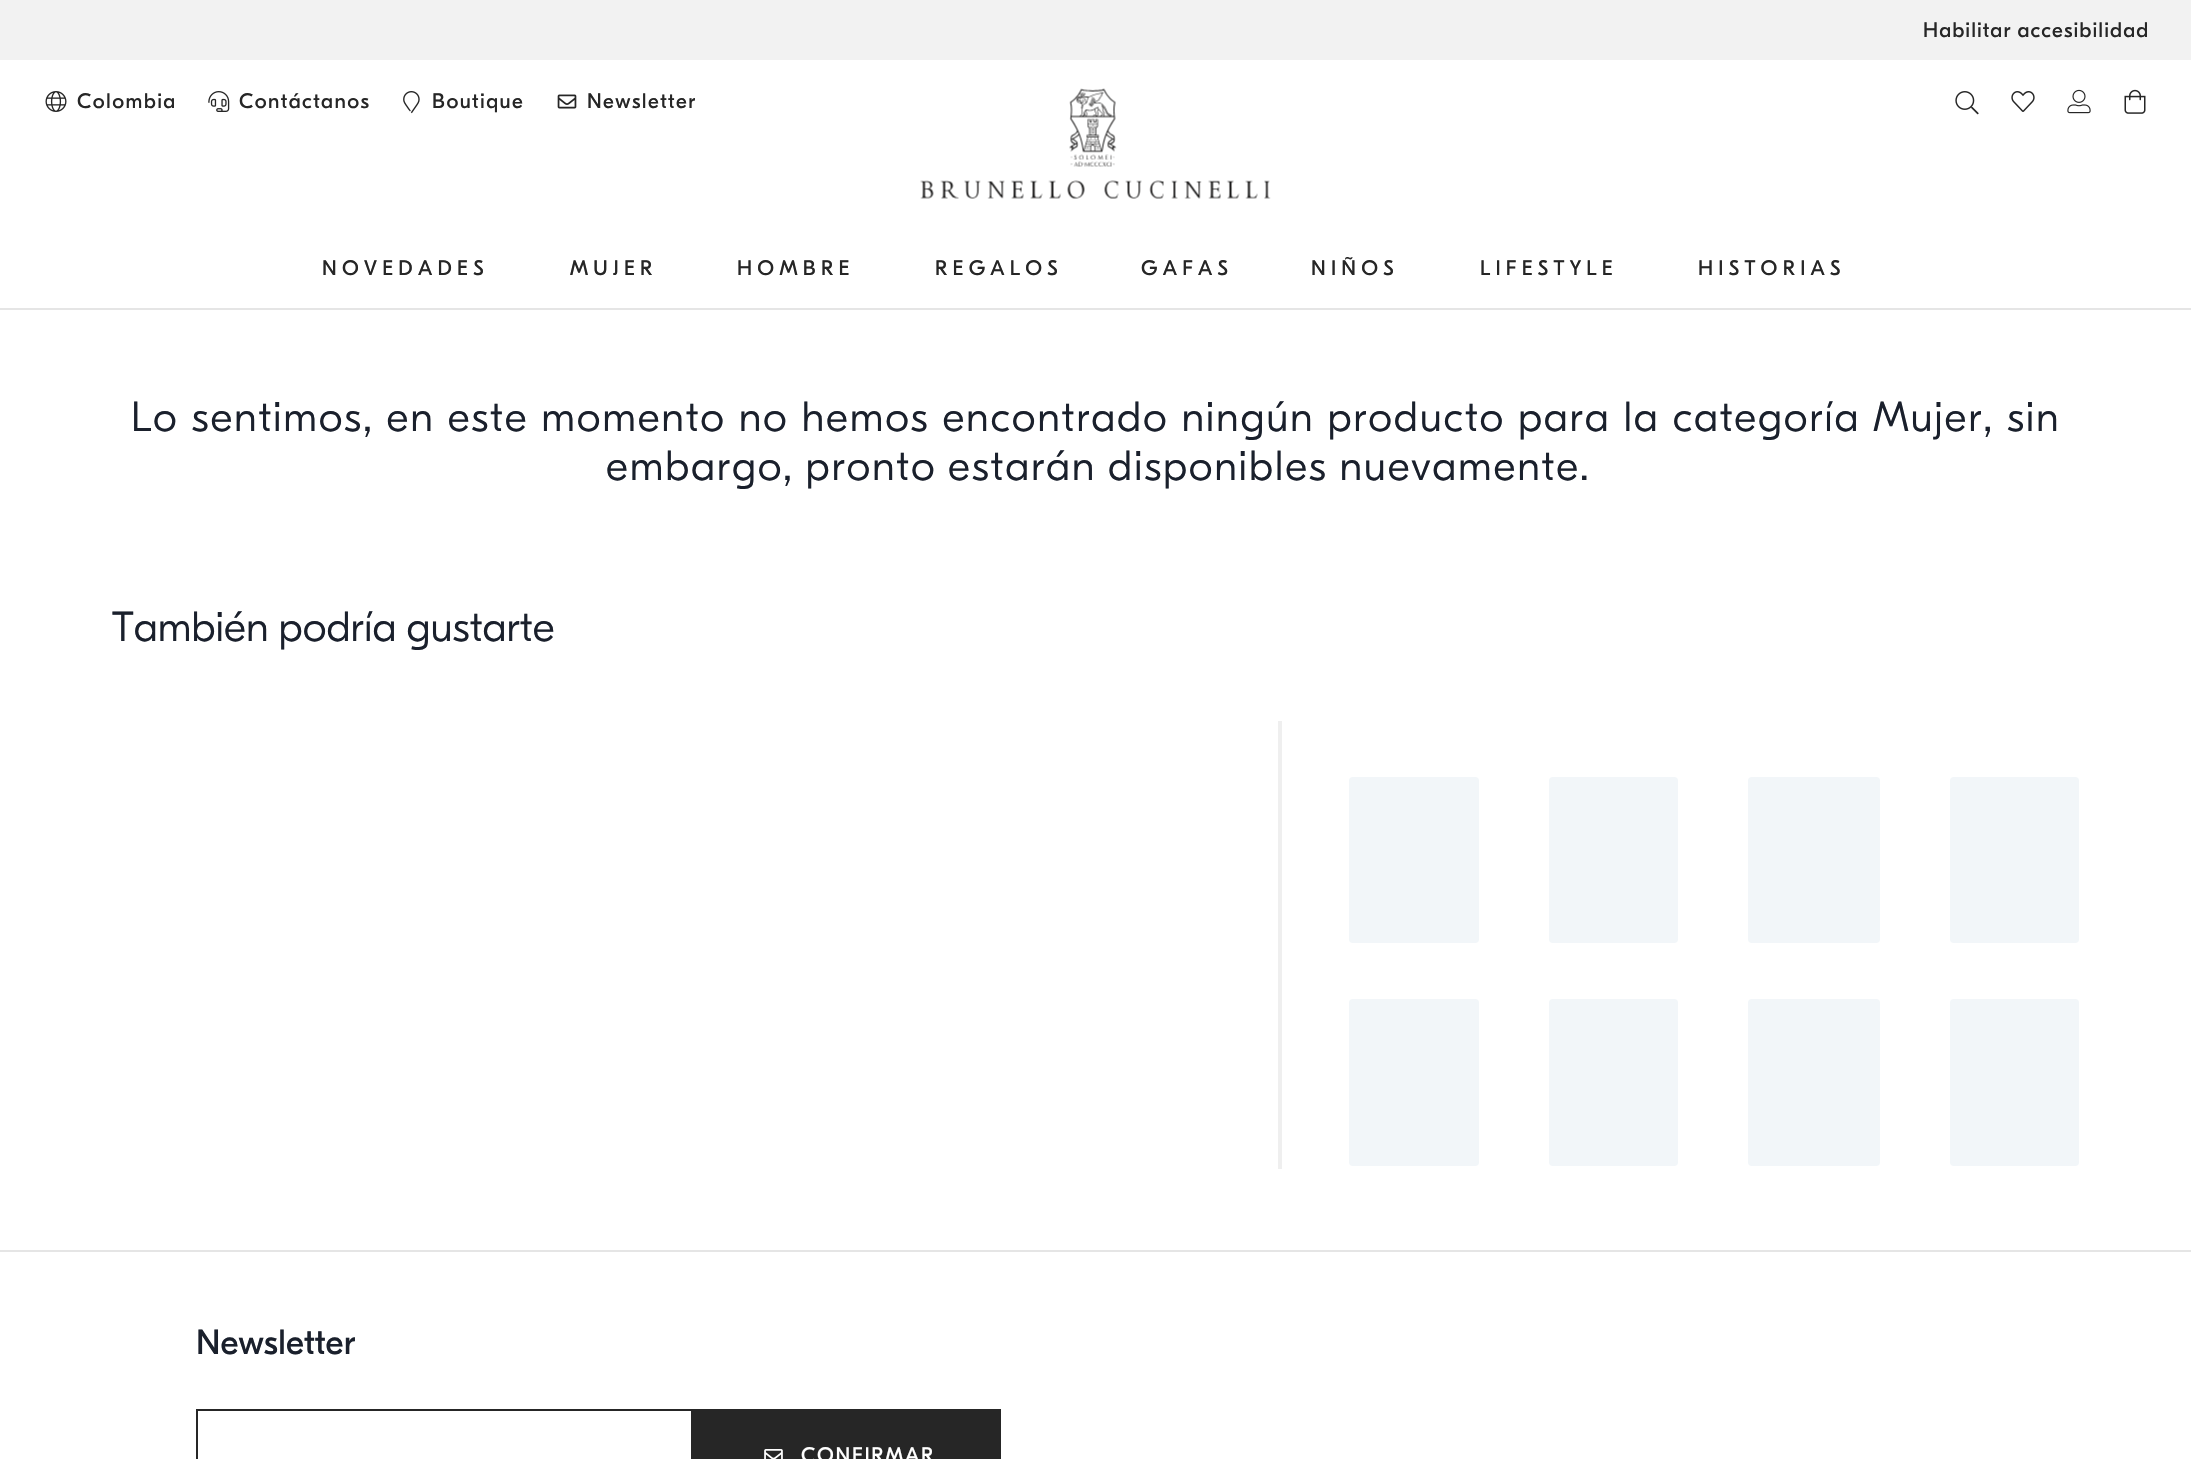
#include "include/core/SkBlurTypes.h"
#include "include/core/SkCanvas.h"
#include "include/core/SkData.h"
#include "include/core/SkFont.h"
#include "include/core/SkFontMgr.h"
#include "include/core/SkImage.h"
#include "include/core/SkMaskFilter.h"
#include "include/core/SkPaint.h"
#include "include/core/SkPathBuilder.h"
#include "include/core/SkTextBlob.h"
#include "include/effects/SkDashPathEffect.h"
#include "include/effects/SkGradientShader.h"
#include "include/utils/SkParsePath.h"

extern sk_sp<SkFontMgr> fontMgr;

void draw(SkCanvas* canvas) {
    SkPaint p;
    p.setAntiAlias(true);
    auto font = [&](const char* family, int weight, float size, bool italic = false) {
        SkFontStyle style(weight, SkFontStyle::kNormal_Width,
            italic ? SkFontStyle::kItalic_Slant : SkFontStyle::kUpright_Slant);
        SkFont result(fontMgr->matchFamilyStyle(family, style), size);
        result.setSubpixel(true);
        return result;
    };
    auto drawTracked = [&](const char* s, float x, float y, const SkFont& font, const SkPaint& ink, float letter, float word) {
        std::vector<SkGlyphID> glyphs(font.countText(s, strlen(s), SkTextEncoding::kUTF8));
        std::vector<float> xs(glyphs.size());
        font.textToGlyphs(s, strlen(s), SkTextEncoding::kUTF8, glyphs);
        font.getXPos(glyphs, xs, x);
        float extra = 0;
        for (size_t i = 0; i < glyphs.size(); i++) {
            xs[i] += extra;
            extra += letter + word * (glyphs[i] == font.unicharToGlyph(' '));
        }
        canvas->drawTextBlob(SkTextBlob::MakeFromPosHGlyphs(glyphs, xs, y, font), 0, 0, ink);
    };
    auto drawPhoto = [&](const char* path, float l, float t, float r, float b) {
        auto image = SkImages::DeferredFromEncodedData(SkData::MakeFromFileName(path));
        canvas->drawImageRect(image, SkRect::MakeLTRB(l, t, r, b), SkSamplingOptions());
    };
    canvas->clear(0xFFFFFFFF);
    p.setColor(0xFFE5E5E5);
    canvas->drawRect(SkRect::MakeLTRB(0, 308, 2191, 310), p);
    p.setColor(0xFFF2F2F2);
    canvas->drawRect(SkRect::MakeLTRB(0, 0, 2191, 60), p);
    auto font1 = font("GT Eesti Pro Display", 400, 21);
    p.setColor(0xFF262626);
    drawTracked("Habilitar accesibilidad", 1923, 37, font1, p, 1.05f, -1);
    drawPhoto("media/1.png", 45, 91, 67, 112);
    drawTracked("Colombia", 77, 108, font1, p, 1.4f, 0);
    drawPhoto("media/2.png", 208, 91, 230, 112);
    drawTracked("Contáctanos", 239, 108, font1, p, 1.4f, 0);
    drawPhoto("media/3.png", 403, 91, 420, 114);
    drawTracked("Boutique", 432, 108, font1, p, 1.4f, 0);
    drawPhoto("media/4.png", 557, 94, 577, 109);
    drawTracked("Newsletter", 587, 108, font1, p, 1.4f, 0);
    drawPhoto("media/5.png", 920, 88, 1271, 199);
    drawPhoto("media/6.png", 1955, 91, 1979, 115);
    drawPhoto("media/7.png", 2011, 91, 2035, 112);
    drawPhoto("media/8.png", 2067, 89, 2091, 114);
    drawPhoto("media/9.png", 2124, 89, 2146, 114);
    {
        const struct { const char* s; float x, y; } items[] = {
            {"NOVEDADES", 322, 275},
            {"MUJER", 570, 275},
            {"HOMBRE", 737, 275},
            {"REGALOS", 935, 275},
            {"GAFAS", 1141, 275},
            {"NIÑOS", 1311, 275},
            {"LIFESTYLE", 1480, 275},
            {"HISTORIAS", 1698, 275},
        };
        for (auto [s, x, y] : items) {
            drawTracked(s, x, y, font1, p, 5.25f, 0);
        }
    }
    auto font2 = font("GT Eesti Pro Display", 300, 42);
    p.setColor(0xFF1A202C);
    drawTracked("Lo sentimos, en este momento no hemos encontrado ningún producto para la categoría Mujer, sin", 131, 431, font2, p, 1.75f, -1.25f);
    drawTracked("embargo, pronto estarán disponibles nuevamente.", 606, 480, font2, p, 1.75f, -2.5f);
    drawTracked("También podría gustarte", 112, 641, font2, p, 0, -2.5f);
    p.setColor(0xFFEFEFEF);
    canvas->drawRect(SkRect::MakeLTRB(1278, 721, 1282, 1169), p);
    p.setColor(0xFFF2F6F9);
    canvas->drawRoundRect(SkRect::MakeLTRB(1349, 777, 1479, 943), 4, 4, p);
    canvas->drawRoundRect(SkRect::MakeLTRB(1549, 777, 1678, 943), 4, 4, p);
    canvas->drawRoundRect(SkRect::MakeLTRB(1748, 777, 1880, 943), 4, 4, p);
    canvas->drawRoundRect(SkRect::MakeLTRB(1950, 777, 2079, 943), 4, 4, p);
    canvas->drawRoundRect(SkRect::MakeLTRB(1349, 999, 1479, 1166), 4, 4, p);
    canvas->drawRoundRect(SkRect::MakeLTRB(1549, 999, 1678, 1166), 4, 4, p);
    canvas->drawRoundRect(SkRect::MakeLTRB(1748, 999, 1880, 1166), 4, 4, p);
    canvas->drawRoundRect(SkRect::MakeLTRB(1950, 999, 2079, 1166), 4, 4, p);
    p.setColor(0xFFE5E5E5);
    canvas->drawRect(SkRect::MakeLTRB(0, 1250, 2191, 1252), p);
    auto font3 = font("GT Eesti Pro Display", 400, 35);
    p.setColor(0xFF1A202C);
    canvas->drawString("Newsletter", 196, 1354, font3, p);
    p.setStyle(SkPaint::kStroke_Style);
    p.setStrokeWidth(2);
    p.setColor(0xFF262626);
    canvas->drawRect(SkRect::MakeLTRB(197, 1410, 692, 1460), p);
    p.setStyle(SkPaint::kFill_Style);
    canvas->drawRect(SkRect::MakeLTRB(693, 1409, 1001, 1459), p);
    drawPhoto("media/10.png", 764, 1449, 783, 1459);
    p.setColor(0xFFFFFFFF);
    drawTracked("CONFIRMAR", 801, 1462, font1, p, 1.75f, 0);
}
